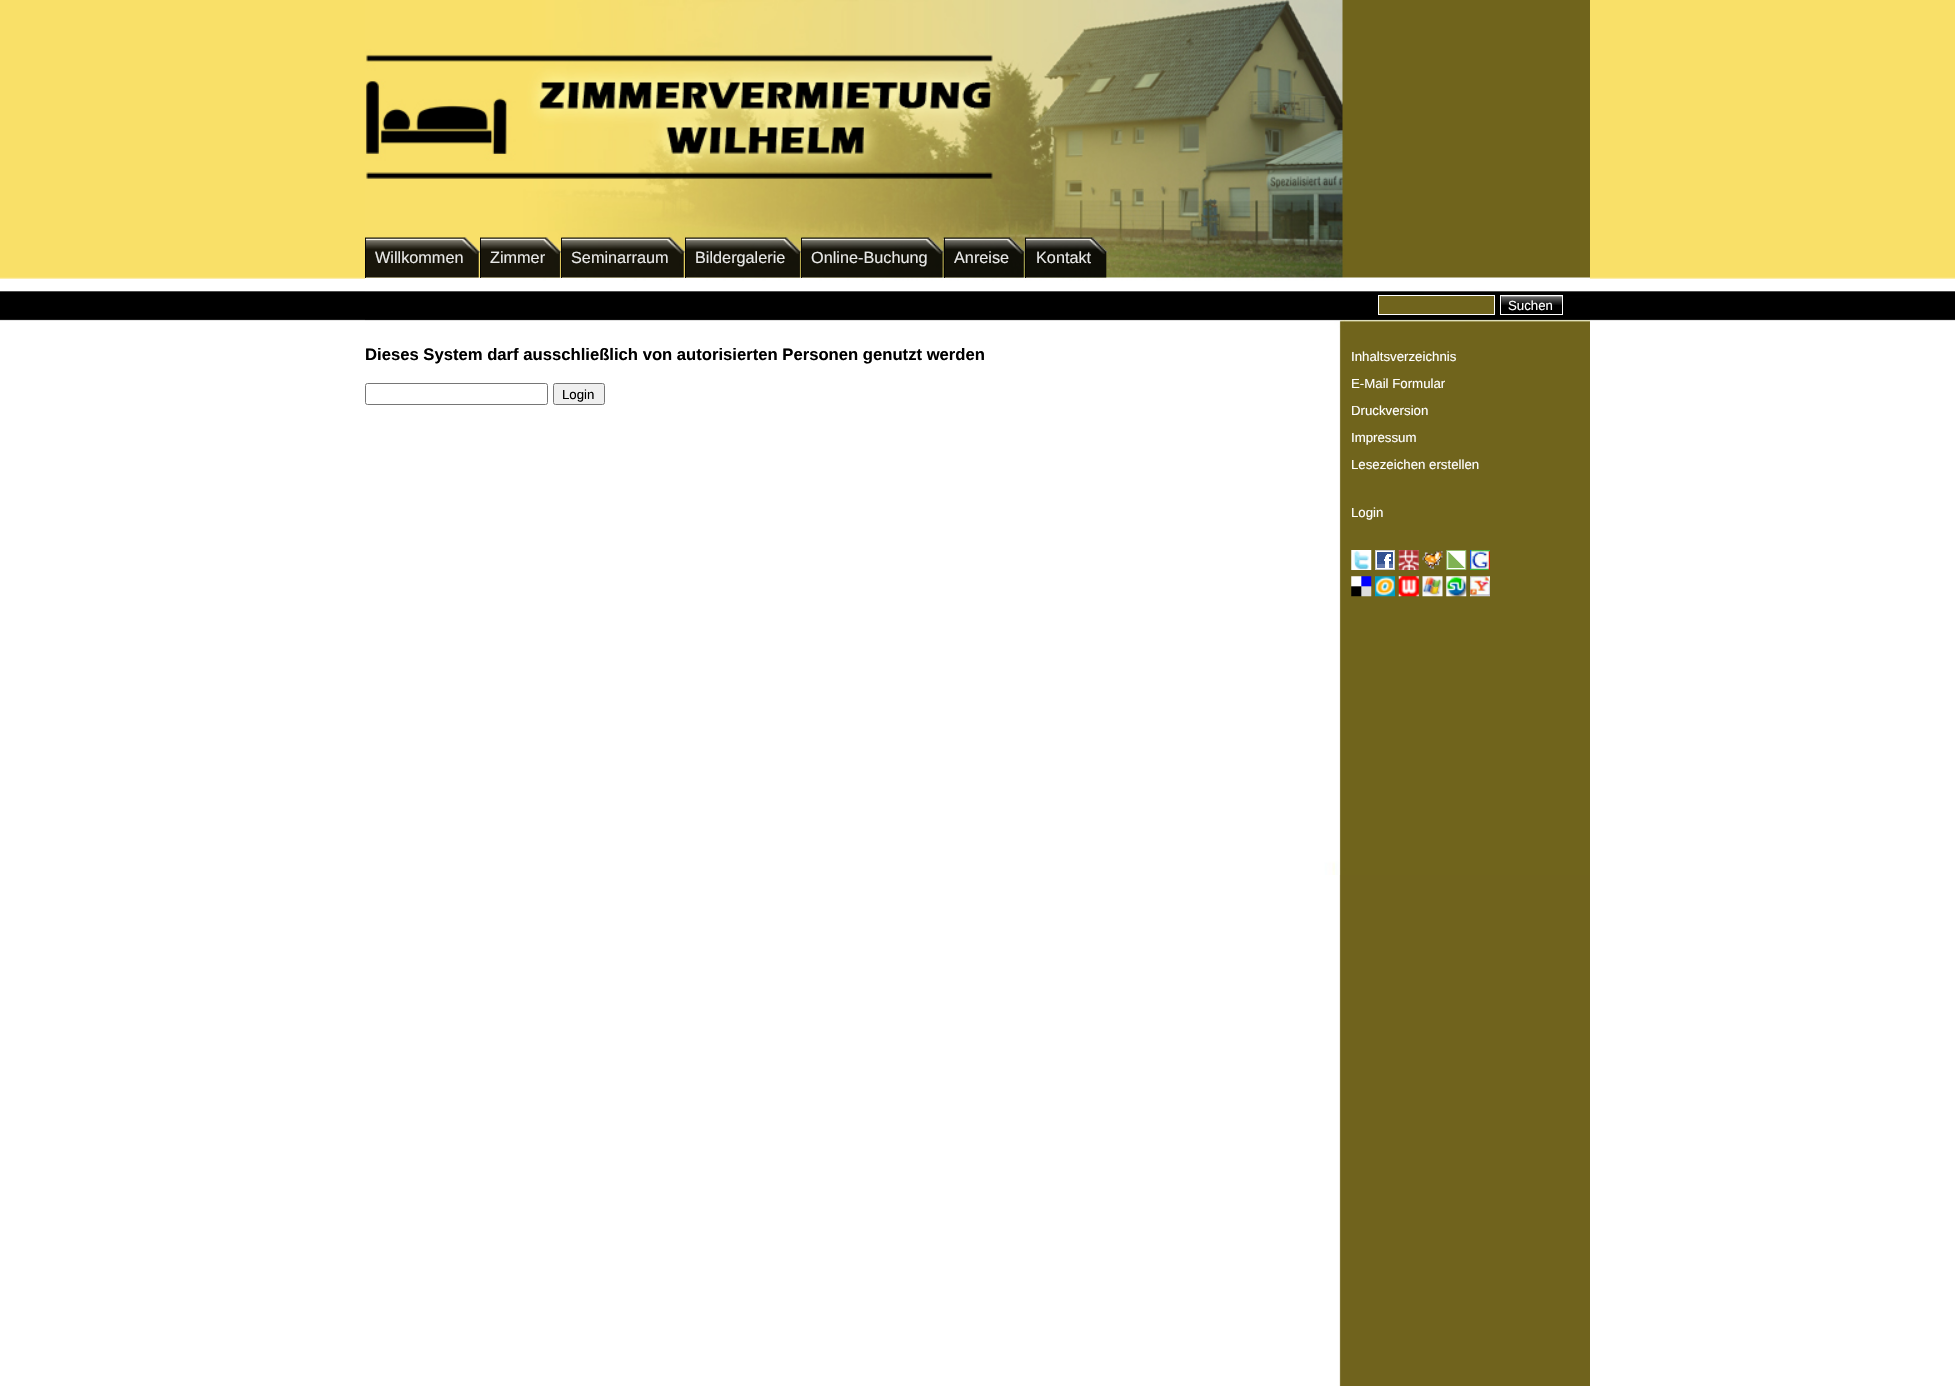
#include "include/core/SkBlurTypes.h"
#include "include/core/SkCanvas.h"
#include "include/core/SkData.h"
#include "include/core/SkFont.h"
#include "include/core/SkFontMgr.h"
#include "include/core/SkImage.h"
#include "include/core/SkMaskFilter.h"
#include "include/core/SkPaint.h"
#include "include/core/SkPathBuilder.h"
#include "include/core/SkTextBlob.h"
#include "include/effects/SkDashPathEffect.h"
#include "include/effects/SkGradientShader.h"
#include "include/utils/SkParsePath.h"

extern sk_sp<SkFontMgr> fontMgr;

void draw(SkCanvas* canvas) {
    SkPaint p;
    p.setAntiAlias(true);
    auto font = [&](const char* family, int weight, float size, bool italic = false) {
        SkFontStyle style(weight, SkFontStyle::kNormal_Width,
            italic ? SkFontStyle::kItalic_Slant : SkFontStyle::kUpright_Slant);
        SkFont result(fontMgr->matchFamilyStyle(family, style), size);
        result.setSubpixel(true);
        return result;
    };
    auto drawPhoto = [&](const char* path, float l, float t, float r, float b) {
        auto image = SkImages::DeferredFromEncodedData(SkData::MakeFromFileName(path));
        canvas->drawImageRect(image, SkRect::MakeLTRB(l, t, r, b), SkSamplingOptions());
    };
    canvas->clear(0xFFFFFFFF);
    drawPhoto("media/1.png", 1339, 875, 1590, 1386);
    drawPhoto("media/2.png", 0, 0, 1955, 875);
    drawPhoto("media/3.png", 365, 0, 1590, 875);
    drawPhoto("media/4.png", 365, 237, 480, 278);
    p.setColor(0xE6000000);
    canvas->drawRect(SkRect::MakeLTRB(365, 238, 366, 278), p);
    auto font1 = font("Liberation Sans", 400, 16.25f);
    p.setColor(0xFFE8E8E7);
    canvas->drawString("Willkommen", 375, 263, font1, p);
    drawPhoto("media/5.png", 480, 237, 562, 278);
    p.setColor(0xE6000000);
    canvas->drawRect(SkRect::MakeLTRB(480, 238, 481, 278), p);
    p.setColor(0xFFE8E8E7);
    canvas->drawString("Zimmer", 490, 263, font1, p);
    drawPhoto("media/6.png", 561, 237, 685, 278);
    p.setColor(0xE6000000);
    canvas->drawRect(SkRect::MakeLTRB(561, 238, 562, 278), p);
    p.setColor(0xFFE8E8E7);
    canvas->drawString("Seminarraum", 571, 263, font1, p);
    drawPhoto("media/7.png", 685, 237, 802, 278);
    p.setColor(0xE6000000);
    canvas->drawRect(SkRect::MakeLTRB(685, 238, 686, 278), p);
    p.setColor(0xFFE8E8E7);
    canvas->drawString("Bildergalerie", 695, 263, font1, p);
    drawPhoto("media/8.png", 801, 237, 944, 278);
    p.setColor(0xE6000000);
    canvas->drawRect(SkRect::MakeLTRB(801, 238, 802, 278), p);
    p.setColor(0xFFE8E8E7);
    canvas->drawString("Online-Buchung", 811, 263, font1, p);
    drawPhoto("media/9.png", 943, 237, 1025, 278);
    p.setColor(0xE6000000);
    canvas->drawRect(SkRect::MakeLTRB(944, 238, 945, 278), p);
    p.setColor(0xFFE8E8E7);
    canvas->drawString("Anreise", 954, 263, font1, p);
    drawPhoto("media/10.png", 1025, 237, 1108, 278);
    p.setColor(0xE6000000);
    canvas->drawRect(SkRect::MakeLTRB(1025, 238, 1026, 278), p);
    p.setColor(0xFFE8E8E7);
    canvas->drawString("Kontakt", 1036, 263, font1, p);
    p.setColor(0xFF70641D);
    canvas->drawRect(SkRect::MakeLTRB(1378.5f, 295.5f, 1494.5f, 314.5f), p);
    p.setStyle(SkPaint::kStroke_Style);
    p.setStrokeWidth(1);
    p.setColor(0xFFFFFFFF);
    canvas->drawRect(SkRect::MakeLTRB(1378.5f, 295.5f, 1494.5f, 314.5f), p);
    drawPhoto("media/11.png", 1501, 296, 1562, 305);
    canvas->drawRect(SkRect::MakeLTRB(1500.5f, 295.5f, 1562.5f, 314.5f), p);
    auto font2 = font("Liberation Sans", 400, 13.25f);
    p.setStyle(SkPaint::kFill_Style);
    canvas->drawString("Suchen", 1508, 310, font2, p);
    auto font3 = font("Liberation Sans", 700, 16.65f);
    p.setColor(0xFF000000);
    canvas->drawString("Dieses System darf ausschließlich von autorisierten Personen genutzt werden", 365, 360, font3, p);
    p.setStyle(SkPaint::kStroke_Style);
    p.setColor(0xFF767676);
    canvas->drawRoundRect(SkRect::MakeLTRB(365.5f, 383.5f, 547.5f, 404.5f), 2, 2, p);
    p.setStyle(SkPaint::kFill_Style);
    p.setColor(0xFFEFEFEF);
    canvas->drawRoundRect(SkRect::MakeLTRB(553.5f, 383.5f, 604.5f, 404.5f), 2, 2, p);
    p.setStyle(SkPaint::kStroke_Style);
    p.setColor(0xFF767676);
    canvas->drawRoundRect(SkRect::MakeLTRB(553.5f, 383.5f, 604.5f, 404.5f), 2, 2, p);
    p.setStyle(SkPaint::kFill_Style);
    p.setColor(0xFF000000);
    canvas->drawString("Login", 562, 399, font2, p);
    p.setColor(0xFFFFFFFF);
    {
        const struct { const char* s; float x, y; } items[] = {
            {"Inhaltsverzeichnis", 1351, 361},
            {"E-Mail Formular", 1351, 388},
            {"Druckversion", 1351, 415},
            {"Impressum", 1351, 442},
            {"Lesezeichen erstellen", 1351, 469},
            {"Login", 1351, 517},
        };
        for (auto [s, x, y] : items) {
            canvas->drawString(s, x, y, font2, p);
        }
    }
    drawPhoto("media/12.png", 1351, 550, 1372, 570);
    drawPhoto("media/13.png", 1375, 550, 1395, 570);
    drawPhoto("media/14.png", 1398, 550, 1419, 570);
    drawPhoto("media/15.png", 1422, 551, 1443, 569);
    drawPhoto("media/16.png", 1446, 550, 1467, 570);
    drawPhoto("media/17.png", 1470, 550, 1490, 570);
    drawPhoto("media/18.png", 1351, 576, 1372, 597);
    drawPhoto("media/19.png", 1375, 576, 1395, 597);
    drawPhoto("media/20.png", 1398, 576, 1419, 597);
    drawPhoto("media/21.png", 1422, 576, 1443, 597);
    drawPhoto("media/22.png", 1446, 576, 1467, 597);
    drawPhoto("media/23.png", 1470, 576, 1490, 597);
}
